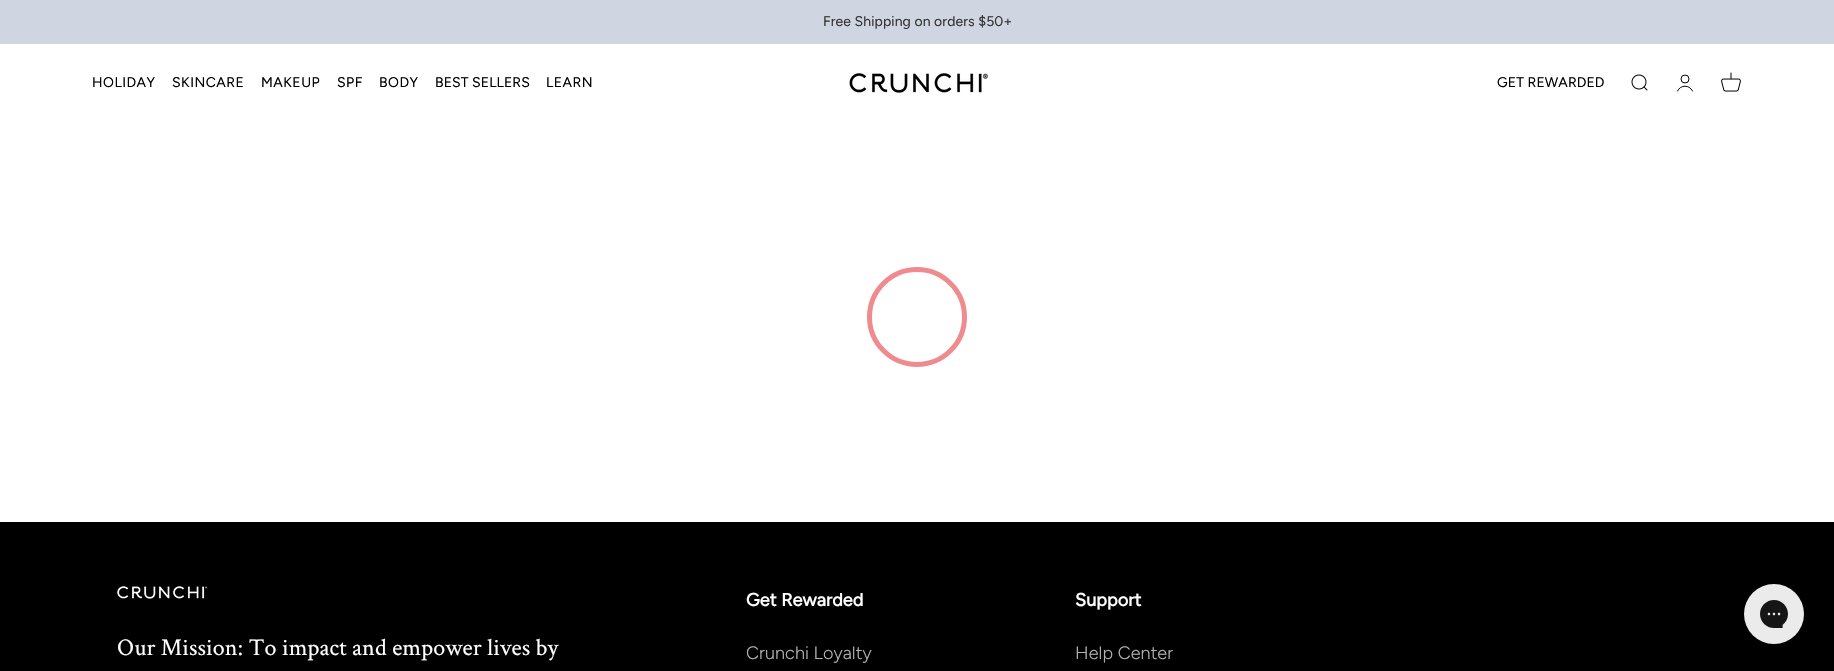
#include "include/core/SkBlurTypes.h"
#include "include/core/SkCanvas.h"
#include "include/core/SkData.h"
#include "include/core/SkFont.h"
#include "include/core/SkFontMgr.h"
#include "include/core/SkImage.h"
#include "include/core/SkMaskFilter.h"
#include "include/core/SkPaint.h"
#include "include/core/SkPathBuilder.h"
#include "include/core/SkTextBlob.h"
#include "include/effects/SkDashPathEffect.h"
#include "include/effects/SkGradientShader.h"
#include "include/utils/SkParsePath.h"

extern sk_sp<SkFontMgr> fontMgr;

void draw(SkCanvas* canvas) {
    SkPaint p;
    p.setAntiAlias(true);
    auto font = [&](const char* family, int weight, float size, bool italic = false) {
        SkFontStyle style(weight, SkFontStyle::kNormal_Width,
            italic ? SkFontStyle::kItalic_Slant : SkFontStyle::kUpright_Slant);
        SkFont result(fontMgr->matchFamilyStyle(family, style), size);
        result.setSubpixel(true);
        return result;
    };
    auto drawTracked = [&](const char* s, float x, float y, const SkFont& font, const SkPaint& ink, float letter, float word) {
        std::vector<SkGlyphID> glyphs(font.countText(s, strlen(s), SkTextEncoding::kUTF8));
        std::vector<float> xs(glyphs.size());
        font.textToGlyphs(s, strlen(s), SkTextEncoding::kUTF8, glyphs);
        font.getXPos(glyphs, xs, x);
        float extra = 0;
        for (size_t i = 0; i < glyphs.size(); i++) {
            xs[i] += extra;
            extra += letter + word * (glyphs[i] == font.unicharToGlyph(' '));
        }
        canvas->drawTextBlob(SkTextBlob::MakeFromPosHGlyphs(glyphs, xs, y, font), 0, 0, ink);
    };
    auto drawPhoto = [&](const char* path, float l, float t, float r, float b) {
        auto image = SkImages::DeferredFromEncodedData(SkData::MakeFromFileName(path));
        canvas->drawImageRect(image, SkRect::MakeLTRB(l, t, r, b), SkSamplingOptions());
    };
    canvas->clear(0xFFFFFFFF);
    p.setColor(0xFFD0D6E1);
    canvas->drawRect(SkRect::MakeLTRB(0, 0, 1834, 44), p);
    auto font1 = font("Figtree", 300, 14);
    p.setColor(0xFF333333);
    drawTracked("Free Shipping on orders $50+", 823, 26, font1, p, 0.1f, 0);
    p.setColor(0xFF000000);
    {
        const struct { const char* s; float x, y; } items[] = {
            {"HOLIDAY", 92, 87},
            {"SKINCARE", 172, 87},
            {"MAKEUP", 261, 87},
            {"SPF", 337, 87},
            {"BODY", 379, 87},
        };
        for (auto [s, x, y] : items) {
            drawTracked(s, x, y, font1, p, 0.5f, 0);
        }
    }
    drawTracked("BEST SELLERS", 435, 87, font1, p, 0.1f, 0);
    drawTracked("LEARN", 546, 87, font1, p, 0.5f, 0);
    drawPhoto("media/1.png", 849, 73, 988, 93);
    drawTracked("GET REWARDED", 1497, 87, font1, p, 0.1f, 0);
    drawPhoto("media/2.png", 1631, 74, 1648, 91);
    p.setStyle(SkPaint::kStroke_Style);
    p.setStrokeWidth(1);
    canvas->drawCircle(1685, 79, 4, p);
    p.setStrokeCap(SkPaint::kRound_Cap);
    canvas->drawPath(SkPathBuilder().moveTo(1677.5f, 91).cubicTo(1680.5f, 84.5f, 1689.5f, 84.5f, 1692.5f, 91).detach(), p);
    drawPhoto("media/3.png", 1721, 72, 1741, 92);
    p.setStrokeWidth(5);
    p.setStrokeCap(SkPaint::kButt_Cap);
    p.setColor(0xFFEF8B8F);
    canvas->drawCircle(917, 317, 47.5f, p);
    p.setStyle(SkPaint::kFill_Style);
    p.setColor(0xFF000000);
    canvas->drawRect(SkRect::MakeLTRB(0, 522, 1834, 671), p);
    drawPhoto("media/4.png", 117, 586, 207, 599);
    auto font2 = font("Crimson Text", 400, 24);
    p.setColor(0xFFFFFFFF);
    drawTracked("Our Mission: To impact and empower lives by", 117, 655, font2, p, 0.1f, 0);
    auto font3 = font("Figtree", 700, 18);
    drawTracked("Get Rewarded", 746, 606, font3, p, 0.1f, 0);
    auto font4 = font("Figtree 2", 300, 18);
    p.setColor(0xFFB3B3B3);
    drawTracked("Crunchi Loyalty", 746, 659, font4, p, 0.1f, 0);
    p.setColor(0xFFFFFFFF);
    drawTracked("Support", 1075, 606, font3, p, 0.1f, 0);
    p.setColor(0xFFB3B3B3);
    drawTracked("Help Center", 1075, 659, font4, p, 0.1f, 0);
    drawPhoto("media/5.png", 1744, 584, 1804, 644);
}
